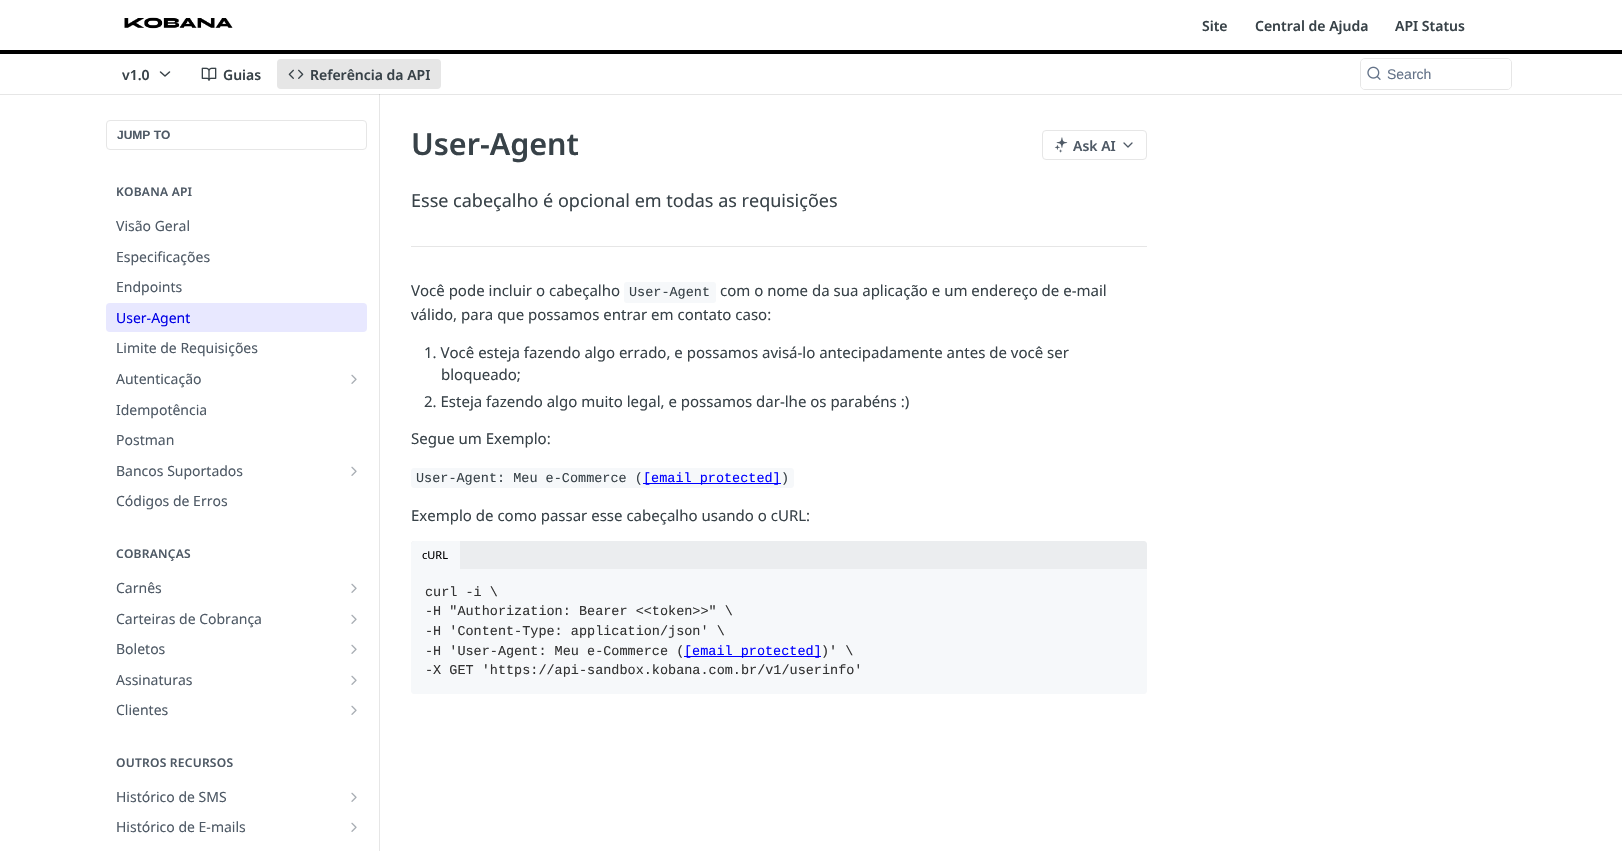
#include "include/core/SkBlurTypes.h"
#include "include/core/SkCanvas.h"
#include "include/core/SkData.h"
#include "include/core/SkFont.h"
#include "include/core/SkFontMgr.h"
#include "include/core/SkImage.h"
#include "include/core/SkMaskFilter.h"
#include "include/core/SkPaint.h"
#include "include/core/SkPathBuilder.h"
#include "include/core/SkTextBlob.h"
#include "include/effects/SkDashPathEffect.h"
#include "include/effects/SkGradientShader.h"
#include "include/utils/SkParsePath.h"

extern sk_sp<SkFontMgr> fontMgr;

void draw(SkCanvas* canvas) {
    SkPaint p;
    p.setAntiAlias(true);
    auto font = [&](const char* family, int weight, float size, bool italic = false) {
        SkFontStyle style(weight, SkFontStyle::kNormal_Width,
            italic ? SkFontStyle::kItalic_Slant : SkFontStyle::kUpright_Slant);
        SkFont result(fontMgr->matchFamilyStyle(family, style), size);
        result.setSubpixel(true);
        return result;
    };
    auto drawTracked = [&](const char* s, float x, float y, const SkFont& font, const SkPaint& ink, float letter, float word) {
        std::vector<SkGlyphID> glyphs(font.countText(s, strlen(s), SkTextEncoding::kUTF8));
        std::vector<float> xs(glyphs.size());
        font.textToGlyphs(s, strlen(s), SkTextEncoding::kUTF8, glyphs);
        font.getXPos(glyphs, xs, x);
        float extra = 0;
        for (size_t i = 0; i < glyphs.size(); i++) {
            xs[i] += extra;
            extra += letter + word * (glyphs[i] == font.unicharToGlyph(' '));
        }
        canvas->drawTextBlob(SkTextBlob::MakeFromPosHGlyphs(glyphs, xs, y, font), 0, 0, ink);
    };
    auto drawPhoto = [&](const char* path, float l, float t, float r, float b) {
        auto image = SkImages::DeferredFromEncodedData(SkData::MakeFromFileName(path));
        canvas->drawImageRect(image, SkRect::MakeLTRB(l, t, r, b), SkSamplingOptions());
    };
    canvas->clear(0xFFFFFFFF);
    p.setColor(0xFFE6E6E6);
    canvas->drawRect(SkRect::MakeLTRB(0, 94, 1622, 95), p);
    p.setColor(0xFF000000);
    canvas->drawRect(SkRect::MakeLTRB(0, 50, 1622, 54), p);
    drawPhoto("media/1.png", 124, 17, 233, 29);
    auto font1 = font("Noto Sans", 600, 14);
    p.setColor(0xFF384248);
    {
        const struct { const char* s; float x, y; } items[] = {
            {"Site", 1202, 31},
            {"Central de Ajuda", 1255, 31},
            {"API Status", 1395, 31},
            {"v1.0", 122, 80},
        };
        for (auto [s, x, y] : items) {
            canvas->drawString(s, x, y, font1, p);
        }
    }
    p.setStyle(SkPaint::kStroke_Style);
    p.setStrokeWidth(1.5f);
    p.setStrokeCap(SkPaint::kRound_Cap);
    p.setStrokeJoin(SkPaint::kRound_Join);
    canvas->drawPath(SkPathBuilder().moveTo(160.5f, 72).lineTo(165, 76).lineTo(169.5f, 72).detach(), p);
    drawPhoto("media/2.png", 201, 67, 217, 81);
    p.setStyle(SkPaint::kFill_Style);
    canvas->drawString("Guias", 223, 80, font1, p);
    p.setColor(0xFFE6E6E6);
    canvas->drawRoundRect(SkRect::MakeLTRB(277, 59, 441, 89), 4, 4, p);
    drawPhoto("media/3.png", 288, 69, 304, 79);
    p.setColor(0xFF384248);
    canvas->drawString("Referência da API", 310, 80, font1, p);
    p.setStyle(SkPaint::kStroke_Style);
    p.setStrokeWidth(1);
    p.setStrokeCap(SkPaint::kButt_Cap);
    p.setStrokeJoin(SkPaint::kMiter_Join);
    p.setColor(0xFFE6E6E6);
    canvas->drawRoundRect(SkRect::MakeLTRB(1360.5f, 58.5f, 1511.5f, 89.5f), 4.5f, 4.5f, p);
    p.setStyle(SkPaint::kFill_Style);
    p.setColor(0xFFFFFFFF);
    canvas->drawRoundRect(SkRect::MakeLTRB(1361, 59, 1511, 89), 4, 4, p);
    drawPhoto("media/4.png", 1367, 66, 1381, 80);
    auto font2 = font("Liberation Sans", 400, 14);
    p.setColor(0xFF637288);
    canvas->drawString("Search", 1387, 79, font2, p);
    p.setColor(0xFFE6E6E6);
    canvas->drawRect(SkRect::MakeLTRB(379, 94, 380, 851), p);
    p.setColor(0xFFCFCFCF);
    canvas->drawRect(SkRect::MakeLTRB(379, 94, 380, 95), p);
    p.setStyle(SkPaint::kStroke_Style);
    p.setColor(0xFFE6E6E6);
    canvas->drawRoundRect(SkRect::MakeLTRB(106.5f, 120.5f, 366.5f, 149.5f), 3.5f, 3.5f, p);
    auto font3 = font("Liberation Sans", 700, 12);
    p.setStyle(SkPaint::kFill_Style);
    p.setColor(0xFF4F5A66);
    canvas->drawString("JUMP TO", 117, 139, font3, p);
    auto font4 = font("Noto Sans", 600, 12);
    drawTracked("KOBANA API", 116, 196, font4, p, 0.25f, 0);
    auto font5 = font("Noto Sans", 400, 14);
    {
        const struct { const char* s; float x, y; } items[] = {
            {"Visão Geral", 116, 231},
            {"Especificações", 116, 262},
            {"Endpoints", 116, 292},
        };
        for (auto [s, x, y] : items) {
            canvas->drawString(s, x, y, font5, p);
        }
    }
    p.setColor(0xFFE8E8FF);
    canvas->drawRoundRect(SkRect::MakeLTRB(106, 303, 367, 332), 4, 4, p);
    p.setColor(0xFF0000E6);
    canvas->drawString("User-Agent", 116, 323, font5, p);
    p.setColor(0xFF4F5A66);
    canvas->drawString("Limite de Requisições", 116, 353, font5, p);
    canvas->drawString("Autenticação", 116, 384, font5, p);
    drawPhoto("media/5.png", 351, 374, 357, 384);
    {
        const struct { const char* s; float x, y; } items[] = {
            {"Idempotência", 116, 415},
            {"Postman", 116, 445},
            {"Bancos Suportados", 116, 476},
        };
        for (auto [s, x, y] : items) {
            canvas->drawString(s, x, y, font5, p);
        }
    }
    drawPhoto("media/5.png", 351, 466, 357, 476);
    canvas->drawString("Códigos de Erros", 116, 506, font5, p);
    drawTracked("COBRANÇAS", 116, 558, font4, p, 0.25f, 0);
    canvas->drawString("Carnês", 116, 593, font5, p);
    drawPhoto("media/5.png", 351, 583, 357, 593);
    canvas->drawString("Carteiras de Cobrança", 116, 624, font5, p);
    drawPhoto("media/5.png", 351, 614, 357, 624);
    canvas->drawString("Boletos", 116, 654, font5, p);
    drawPhoto("media/5.png", 351, 644, 357, 654);
    canvas->drawString("Assinaturas", 116, 685, font5, p);
    drawPhoto("media/5.png", 351, 675, 357, 685);
    canvas->drawString("Clientes", 116, 715, font5, p);
    drawPhoto("media/5.png", 351, 705, 357, 715);
    drawTracked("OUTROS RECURSOS", 116, 767, font4, p, 0.25f, 0);
    canvas->drawString("Histórico de SMS", 116, 802, font5, p);
    drawPhoto("media/5.png", 351, 792, 357, 802);
    canvas->drawString("Histórico de E-mails", 116, 832, font5, p);
    drawPhoto("media/5.png", 351, 822, 357, 832);
    p.setColor(0xFFE6E6E6);
    canvas->drawRect(SkRect::MakeLTRB(411, 246, 1147, 247), p);
    auto font6 = font("Noto Sans", 600, 30.5f);
    p.setColor(0xFF384248);
    canvas->drawString("User-Agent", 411, 155, font6, p);
    p.setStyle(SkPaint::kStroke_Style);
    p.setColor(0xFFE6E6E6);
    canvas->drawRoundRect(SkRect::MakeLTRB(1042.5f, 130.5f, 1146.5f, 159.5f), 3.5f, 3.5f, p);
    drawPhoto("media/6.png", 1054, 137, 1068, 153);
    p.setStyle(SkPaint::kFill_Style);
    p.setColor(0xFF4F5A66);
    canvas->drawString("Ask AI", 1073, 151, font1, p);
    p.setStyle(SkPaint::kStroke_Style);
    p.setStrokeWidth(1.3f);
    p.setStrokeCap(SkPaint::kRound_Cap);
    p.setStrokeJoin(SkPaint::kRound_Join);
    canvas->drawPath(SkPathBuilder().moveTo(1124, 143).lineTo(1128, 147).lineTo(1132, 143).detach(), p);
    auto font7 = font("Noto Sans", 400, 18);
    p.setStyle(SkPaint::kFill_Style);
    p.setColor(0xFF384248);
    canvas->drawString("Esse cabeçalho é opcional em todas as requisições", 411, 207, font7, p);
    auto font8 = font("Noto Sans", 400, 15);
    canvas->drawString("Você pode incluir o cabeçalho", 411, 296, font8, p);
    p.setColor(0xFFF6F8FA);
    canvas->drawRoundRect(SkRect::MakeLTRB(624, 282, 716, 303), 3, 3, p);
    auto font9 = font("Liberation Mono", 400, 13.5f);
    p.setColor(0xFF384248);
    canvas->drawString("User-Agent", 629, 296, font9, p);
    {
        const struct { const char* s; float x, y; } items[] = {
            {"com o nome da sua aplicação e um endereço de e-mail", 720, 296},
            {"válido, para que possamos entrar em contato caso:", 411, 320},
            {"1. Você esteja fazendo algo errado, e possamos avisá-lo antecipadamente antes de você ser", 424, 358},
            {"bloqueado;", 441, 380},
            {"2. Esteja fazendo algo muito legal, e possamos dar-lhe os parabéns :)", 424, 407},
            {"Segue um Exemplo:", 411, 444},
        };
        for (auto [s, x, y] : items) {
            canvas->drawString(s, x, y, font8, p);
        }
    }
    p.setColor(0xFFF6F8FA);
    canvas->drawPath(SkPathBuilder().moveTo(414, 468).lineTo(643, 468).lineTo(643, 488).lineTo(414, 488).cubicTo(412.5f, 488, 411, 486.5f, 411, 485).lineTo(411, 471).cubicTo(411, 469.5f, 412.5f, 468, 414, 468).close().detach(), p);
    p.setColor(0xFF384248);
    canvas->drawString("User-Agent: Meu e-Commerce (", 416, 482, font9, p);
    p.setColor(0xFFF6F8FA);
    canvas->drawRect(SkRect::MakeLTRB(643, 468, 781, 488), p);
    p.setColor(0xFF0000FF);
    canvas->drawRect(SkRect::MakeLTRB(643, 483, 781, 484), p);
    canvas->drawString("[email protected]", 643, 482, font9, p);
    p.setColor(0xFFF6F8FA);
    canvas->drawPath(SkPathBuilder().moveTo(781, 468).lineTo(791, 468).cubicTo(792.5f, 468, 794, 469.5f, 794, 471).lineTo(794, 485).cubicTo(794, 486.5f, 792.5f, 488, 791, 488).lineTo(781, 488).close().detach(), p);
    p.setColor(0xFF384248);
    canvas->drawString(")", 781, 482, font9, p);
    canvas->drawString("Exemplo de como passar esse cabeçalho usando o cURL:", 411, 521, font8, p);
    p.setColor(0xFFEBEDEF);
    canvas->drawPath(SkPathBuilder().moveTo(414, 541).lineTo(1144, 541).cubicTo(1145.5f, 541, 1147, 542.5f, 1147, 544).lineTo(1147, 569).lineTo(411, 569).lineTo(411, 544).cubicTo(411, 542.5f, 412.5f, 541, 414, 541).close().detach(), p);
    p.setColor(0xFFF6F8FA);
    canvas->drawPath(SkPathBuilder().moveTo(414, 541).lineTo(460, 541).lineTo(460, 569).lineTo(411, 569).lineTo(411, 544).cubicTo(411, 542.5f, 412.5f, 541, 414, 541).close().detach(), p);
    auto font10 = font("Noto Sans", 400, 11);
    p.setColor(0xFF000000);
    canvas->drawString("cURL", 422, 559, font10, p);
    p.setColor(0xFFF6F8FA);
    canvas->drawPath(SkPathBuilder().moveTo(411, 569).lineTo(1147, 569).lineTo(1147, 691).cubicTo(1147, 692.5f, 1145.5f, 694, 1144, 694).lineTo(414, 694).cubicTo(412.5f, 694, 411, 692.5f, 411, 691).close().detach(), p);
    p.setColor(0xFF333333);
    {
        const struct { const char* s; float x, y; } items[] = {
            {"curl -i \\", 425, 596},
            {"-H \"Authorization: Bearer <<token>>\" \\", 425, 615},
            {"-H 'Content-Type: application/json' \\", 425, 635},
            {"-H 'User-Agent: Meu e-Commerce (", 425, 655},
        };
        for (auto [s, x, y] : items) {
            canvas->drawString(s, x, y, font9, p);
        }
    }
    p.setColor(0xFF0000FF);
    canvas->drawRect(SkRect::MakeLTRB(684, 656, 821, 657), p);
    canvas->drawString("[email protected]", 684, 655, font9, p);
    p.setColor(0xFF333333);
    canvas->drawString(")' \\", 821, 655, font9, p);
    canvas->drawString("-X GET 'https://api-sandbox.kobana.com.br/v1/userinfo'", 425, 674, font9, p);
}
